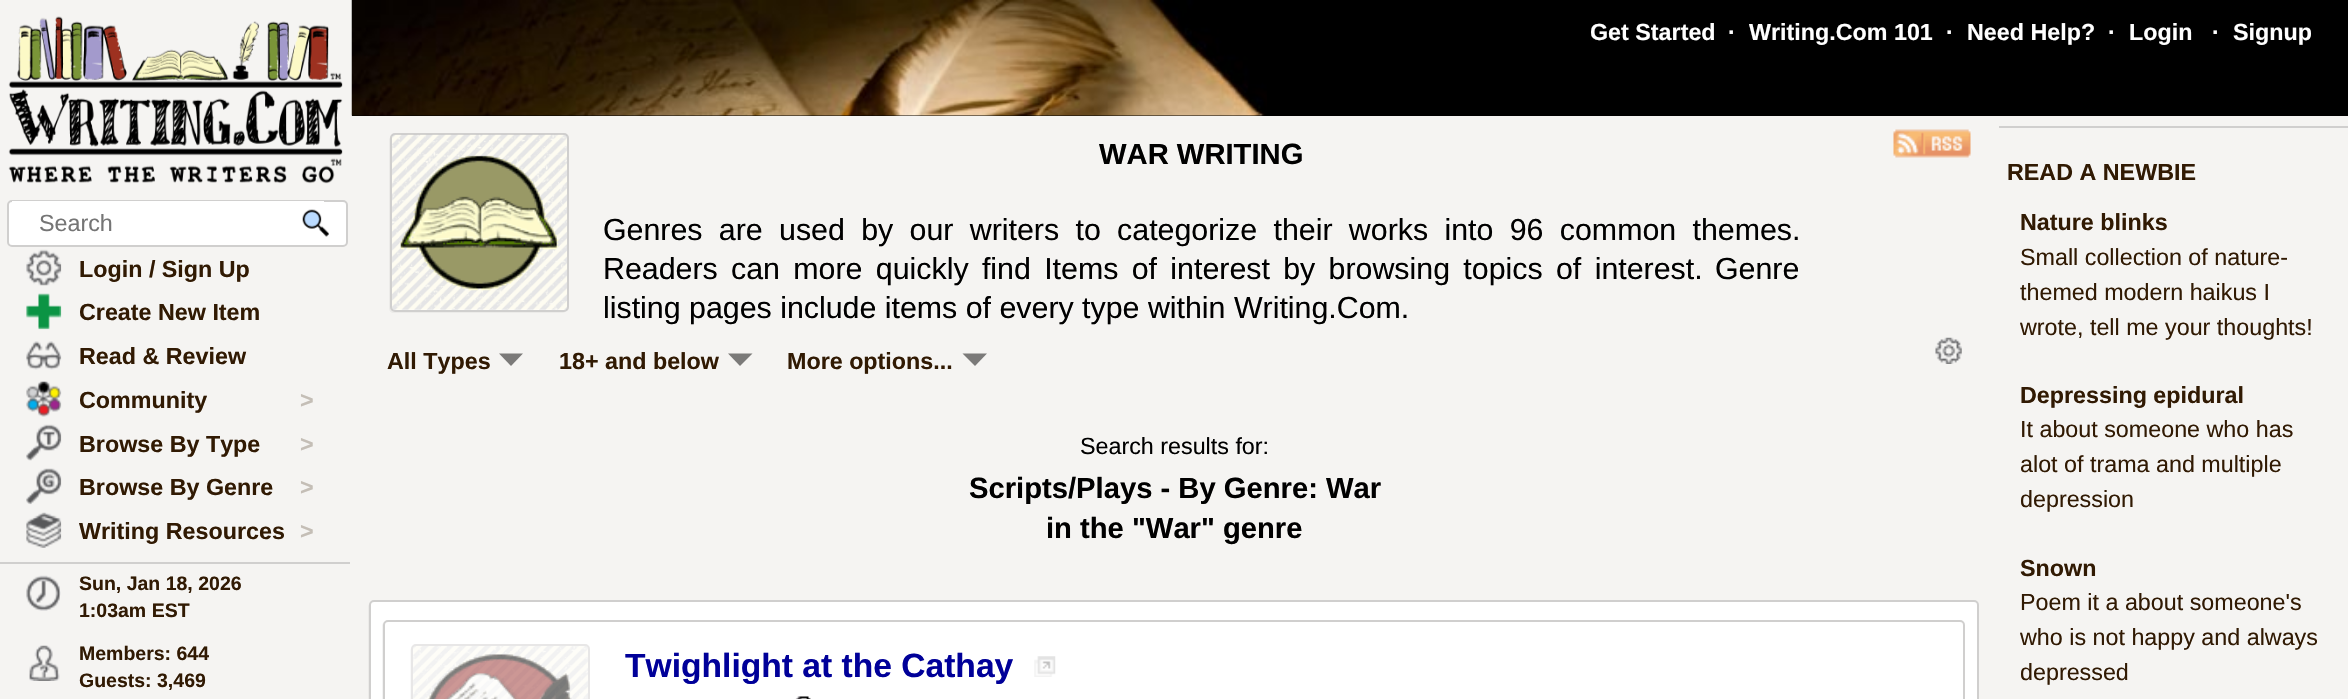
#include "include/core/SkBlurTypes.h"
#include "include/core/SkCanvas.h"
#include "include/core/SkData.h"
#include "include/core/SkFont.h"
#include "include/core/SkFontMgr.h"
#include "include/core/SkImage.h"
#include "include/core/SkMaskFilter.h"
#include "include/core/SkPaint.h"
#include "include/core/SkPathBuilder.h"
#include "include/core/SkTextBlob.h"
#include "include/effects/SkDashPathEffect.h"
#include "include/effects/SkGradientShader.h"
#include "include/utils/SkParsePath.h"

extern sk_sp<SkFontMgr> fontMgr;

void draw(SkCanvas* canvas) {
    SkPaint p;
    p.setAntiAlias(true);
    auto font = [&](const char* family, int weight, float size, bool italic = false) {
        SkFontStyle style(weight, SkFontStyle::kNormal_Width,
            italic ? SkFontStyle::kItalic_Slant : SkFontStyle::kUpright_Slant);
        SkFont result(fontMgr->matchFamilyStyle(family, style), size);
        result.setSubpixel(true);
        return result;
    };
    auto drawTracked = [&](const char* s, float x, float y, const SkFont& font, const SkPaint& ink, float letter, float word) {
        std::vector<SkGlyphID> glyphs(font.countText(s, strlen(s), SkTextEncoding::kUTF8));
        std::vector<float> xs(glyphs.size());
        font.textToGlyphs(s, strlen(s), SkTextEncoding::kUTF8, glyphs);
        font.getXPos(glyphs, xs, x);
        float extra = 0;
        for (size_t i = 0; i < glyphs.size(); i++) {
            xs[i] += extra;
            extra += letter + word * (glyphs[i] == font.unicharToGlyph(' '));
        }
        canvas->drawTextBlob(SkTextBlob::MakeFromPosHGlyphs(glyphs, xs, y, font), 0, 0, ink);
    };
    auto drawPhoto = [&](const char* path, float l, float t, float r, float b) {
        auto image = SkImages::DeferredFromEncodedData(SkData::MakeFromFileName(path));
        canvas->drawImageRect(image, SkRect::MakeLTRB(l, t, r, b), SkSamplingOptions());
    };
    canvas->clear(0xFFF5F4F2);
    p.setColor(0xFF000000);
    canvas->drawRect(SkRect::MakeLTRB(352, 0, 2348, 116), p);
    drawPhoto("media/1.png", 351, 0, 1267, 116);
    auto font1 = font("Liberation Sans", 700, 23.3f);
    p.setColor(0xFFFFFFFF);
    {
        const struct { const char* s; float x, y; } items[] = {
            {"Get Started", 1590, 40},
            {"·", 1728, 40},
            {"Writing.Com 101", 1749, 40},
            {"·", 1946, 40},
            {"Need Help?", 1967, 40},
            {"·", 2108, 40},
            {"Login", 2129, 40},
            {"·", 2212, 40},
            {"Signup", 2233, 40},
        };
        for (auto [s, x, y] : items) {
            canvas->drawString(s, x, y, font1, p);
        }
    }
    drawPhoto("media/2.png", 8, 16, 343, 184);
    canvas->drawRoundRect(SkRect::MakeLTRB(8, 201, 347, 246), 4, 4, p);
    p.setStyle(SkPaint::kStroke_Style);
    p.setStrokeWidth(2);
    p.setColor(0xFFD0CFCE);
    canvas->drawRoundRect(SkRect::MakeLTRB(8, 201, 347, 246), 4, 4, p);
    p.setStyle(SkPaint::kFill_Style);
    p.setColor(0xFFFFFFFF);
    canvas->drawRect(SkRect::MakeLTRB(12, 201, 324, 202), p);
    auto font2 = font("Liberation Sans", 400, 23.3f);
    p.setColor(0xFF757575);
    canvas->drawString("Search", 39, 231, font2, p);
    drawPhoto("media/3.png", 302, 209, 329, 237);
    drawPhoto("media/4.png", 26, 249, 62, 286);
    p.setColor(0xFF311A03);
    canvas->drawString("Login / Sign Up", 79, 277, font1, p);
    drawPhoto("media/5.png", 26, 293, 62, 330);
    canvas->drawString("Create New Item", 79, 320, font1, p);
    drawPhoto("media/6.png", 26, 341, 62, 370);
    canvas->drawString("Read & Review", 79, 364, font1, p);
    drawPhoto("media/7.png", 26, 381, 62, 417);
    canvas->drawString("Community", 79, 408, font1, p);
    p.setColor(0xFFC4BEB6);
    canvas->drawString(">", 300, 408, font1, p);
    drawPhoto("media/8.png", 26, 424, 62, 461);
    p.setColor(0xFF311A03);
    canvas->drawString("Browse By Type", 79, 452, font1, p);
    p.setColor(0xFFC4BEB6);
    canvas->drawString(">", 300, 452, font1, p);
    drawPhoto("media/9.png", 26, 468, 62, 505);
    p.setColor(0xFF311A03);
    canvas->drawString("Browse By Genre", 79, 495, font1, p);
    p.setColor(0xFFC4BEB6);
    canvas->drawString(">", 300, 495, font1, p);
    drawPhoto("media/10.png", 26, 512, 62, 548);
    p.setColor(0xFF311A03);
    canvas->drawString("Writing Resources", 79, 539, font1, p);
    p.setColor(0xFFC4BEB6);
    canvas->drawString(">", 300, 539, font1, p);
    p.setColor(0xFFD0CFCE);
    canvas->drawRect(SkRect::MakeLTRB(0, 562, 350, 564), p);
    drawPhoto("media/11.png", 26, 575, 61, 611);
    auto font3 = font("Liberation Sans", 700, 19.5f);
    p.setColor(0xFF311A03);
    canvas->drawString("Sun, Jan 18, 2026", 79, 590, font3, p);
    canvas->drawString("1:03am EST", 79, 617, font3, p);
    drawPhoto("media/12.png", 29, 645, 60, 681);
    canvas->drawString("Members: 644", 79, 660, font3, p);
    canvas->drawString("Guests: 3,469", 79, 687, font3, p);
    p.setColor(0xFFECEBE9);
    canvas->drawPath(SkPathBuilder().moveTo(391, 136).cubicTo(390, 137, 389, 139, 389, 140).lineTo(389, 308).cubicTo(389, 311, 391, 313, 394, 313).lineTo(562, 313).cubicTo(564, 313, 565, 312, 566, 311).lineTo(564, 312).lineTo(396, 312).cubicTo(393, 312, 390, 309, 390, 306).lineTo(390, 138).close().detach(), p);
    p.setColor(0xFFFFFFFF);
    canvas->drawRoundRect(SkRect::MakeLTRB(391, 134, 568, 311), 4, 4, p);
    p.setStyle(SkPaint::kStroke_Style);
    p.setColor(0xFFD0CFCE);
    canvas->drawRoundRect(SkRect::MakeLTRB(391, 134, 568, 311), 4, 4, p);
    drawPhoto("media/13.png", 392, 134, 567, 310);
    drawPhoto("media/14.png", 400, 155, 559, 291);
    auto font4 = font("Liberation Sans", 700, 29.2f);
    p.setStyle(SkPaint::kFill_Style);
    p.setColor(0xFF000000);
    canvas->drawString("WAR WRITING", 1099, 164, font4, p);
    auto font5 = font("Liberation Sans", 400, 30.35f);
    drawTracked("Genres are used by our writers to categorize their works into 96 common themes.", 603, 240, font5, p, 0, 7.9f);
    drawTracked("Readers can more quickly find Items of interest by browsing topics of interest.", 603, 279, font5, p, 0, 4.9f);
    canvas->drawString("Genre", 1715, 279, font5, p);
    canvas->drawString("listing pages include items of every type within Writing.Com.", 603, 318, font5, p);
    drawPhoto("media/15.png", 1893, 129, 1971, 158);
    p.setColor(0xFF311A03);
    canvas->drawString("All Types", 387, 369, font1, p);
    p.setColor(0xFF7B7A79);
    canvas->drawPath(SkPathBuilder().moveTo(499, 353.5f).lineTo(523, 353.5f).lineTo(511, 366).close().detach(), p);
    p.setColor(0xFF311A03);
    canvas->drawString("18+ and below", 559, 369, font1, p);
    p.setColor(0xFF7B7A79);
    canvas->drawPath(SkPathBuilder().moveTo(728, 353.5f).lineTo(752.5f, 353.5f).lineTo(740, 366).close().detach(), p);
    p.setColor(0xFF311A03);
    canvas->drawString("More options...", 787, 369, font1, p);
    p.setColor(0xFF7B7A79);
    canvas->drawPath(SkPathBuilder().moveTo(962.5f, 353.5f).lineTo(987, 353.5f).lineTo(975, 366).close().detach(), p);
    drawPhoto("media/16.png", 1935, 337, 1962, 364);
    p.setColor(0xFF000000);
    canvas->drawString("Search results for:", 1080, 454, font2, p);
    canvas->drawString("Scripts/Plays - By Genre: War", 969, 498, font4, p);
    canvas->drawString("in the \"War\" genre", 1046, 538, font4, p);
    p.setColor(0xFFECEBE9);
    canvas->drawPath(SkPathBuilder().moveTo(370, 603).cubicTo(369, 604, 368, 605, 368, 607).lineTo(368, 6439).cubicTo(368, 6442, 370, 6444, 373, 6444).lineTo(1973, 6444).cubicTo(1975, 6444, 1977, 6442, 1978, 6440).cubicTo(1977, 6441, 1976, 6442, 1974, 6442).lineTo(374, 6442).cubicTo(372, 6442, 369, 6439, 369, 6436).lineTo(369, 606).close().detach(), p);
    p.setColor(0xFFFFFFFF);
    canvas->drawRoundRect(SkRect::MakeLTRB(370, 601, 1978, 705), 4, 4, p);
    p.setStyle(SkPaint::kStroke_Style);
    p.setColor(0xFFD0CFCE);
    canvas->drawRoundRect(SkRect::MakeLTRB(370, 601, 1978, 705), 4, 4, p);
    p.setStyle(SkPaint::kFill_Style);
    p.setColor(0xFFF3F3F3);
    canvas->drawPath(SkPathBuilder().moveTo(384, 622).cubicTo(383, 623, 382, 624, 382, 626).lineTo(382, 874).cubicTo(382, 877, 384, 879, 387, 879).lineTo(1959, 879).cubicTo(1961, 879, 1963, 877, 1964, 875).cubicTo(1963, 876, 1962, 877, 1960, 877).lineTo(388, 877).cubicTo(386, 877, 383, 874, 383, 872).lineTo(383, 625).close().detach(), p);
    p.setColor(0xFFFFFFFF);
    canvas->drawRoundRect(SkRect::MakeLTRB(384, 621, 1964, 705), 4, 4, p);
    p.setStyle(SkPaint::kStroke_Style);
    p.setColor(0xFFD0CFCE);
    canvas->drawRoundRect(SkRect::MakeLTRB(384, 621, 1964, 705), 4, 4, p);
    p.setStyle(SkPaint::kFill_Style);
    p.setColor(0xFFF9F9F9);
    canvas->drawPath(SkPathBuilder().moveTo(412, 647).cubicTo(411, 648, 410, 650, 410, 651).lineTo(410, 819).cubicTo(410, 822, 412, 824, 415, 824).lineTo(583, 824).cubicTo(585, 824, 586, 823, 587, 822).lineTo(584, 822).lineTo(416, 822).cubicTo(414, 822, 411, 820, 411, 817).lineTo(411, 649).close().detach(), p);
    p.setStyle(SkPaint::kStroke_Style);
    p.setColor(0xFFE8E7E7);
    canvas->drawRoundRect(SkRect::MakeLTRB(412, 645, 589, 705), 4, 4, p);
    drawPhoto("media/17.png", 413, 646, 588, 699);
    drawPhoto("media/18.png", 428, 654, 572, 699);
    auto font6 = font("Liberation Sans", 700, 33.6f);
    p.setStyle(SkPaint::kFill_Style);
    p.setColor(0xFF000099);
    canvas->drawString("Twighlight at the Cathay", 625, 677, font6, p);
    drawPhoto("media/19.png", 1034, 656, 1056, 677);
    drawPhoto("media/20.png", 795, 696, 811, 699);
    p.setColor(0xFFD0CFCE);
    canvas->drawRect(SkRect::MakeLTRB(1999, 126, 2348, 128), p);
    p.setColor(0xFF311A03);
    canvas->drawString("READ A NEWBIE", 2007, 180, font1, p);
    canvas->drawString("Nature blinks", 2020, 230, font1, p);
    {
        const struct { const char* s; float x, y; } items[] = {
            {"Small collection of nature-", 2020, 265},
            {"themed modern haikus I", 2020, 300},
            {"wrote, tell me your thoughts!", 2020, 335},
        };
        for (auto [s, x, y] : items) {
            canvas->drawString(s, x, y, font2, p);
        }
    }
    canvas->drawString("Depressing epidural", 2020, 403, font1, p);
    {
        const struct { const char* s; float x, y; } items[] = {
            {"It about someone who has", 2020, 437},
            {"alot of trama and multiple", 2020, 472},
            {"depression", 2020, 507},
        };
        for (auto [s, x, y] : items) {
            canvas->drawString(s, x, y, font2, p);
        }
    }
    canvas->drawString("Snown", 2020, 576, font1, p);
    {
        const struct { const char* s; float x, y; } items[] = {
            {"Poem it a about someone's", 2020, 610},
            {"who is not happy and always", 2020, 645},
            {"depressed", 2020, 680},
        };
        for (auto [s, x, y] : items) {
            canvas->drawString(s, x, y, font2, p);
        }
    }
}
